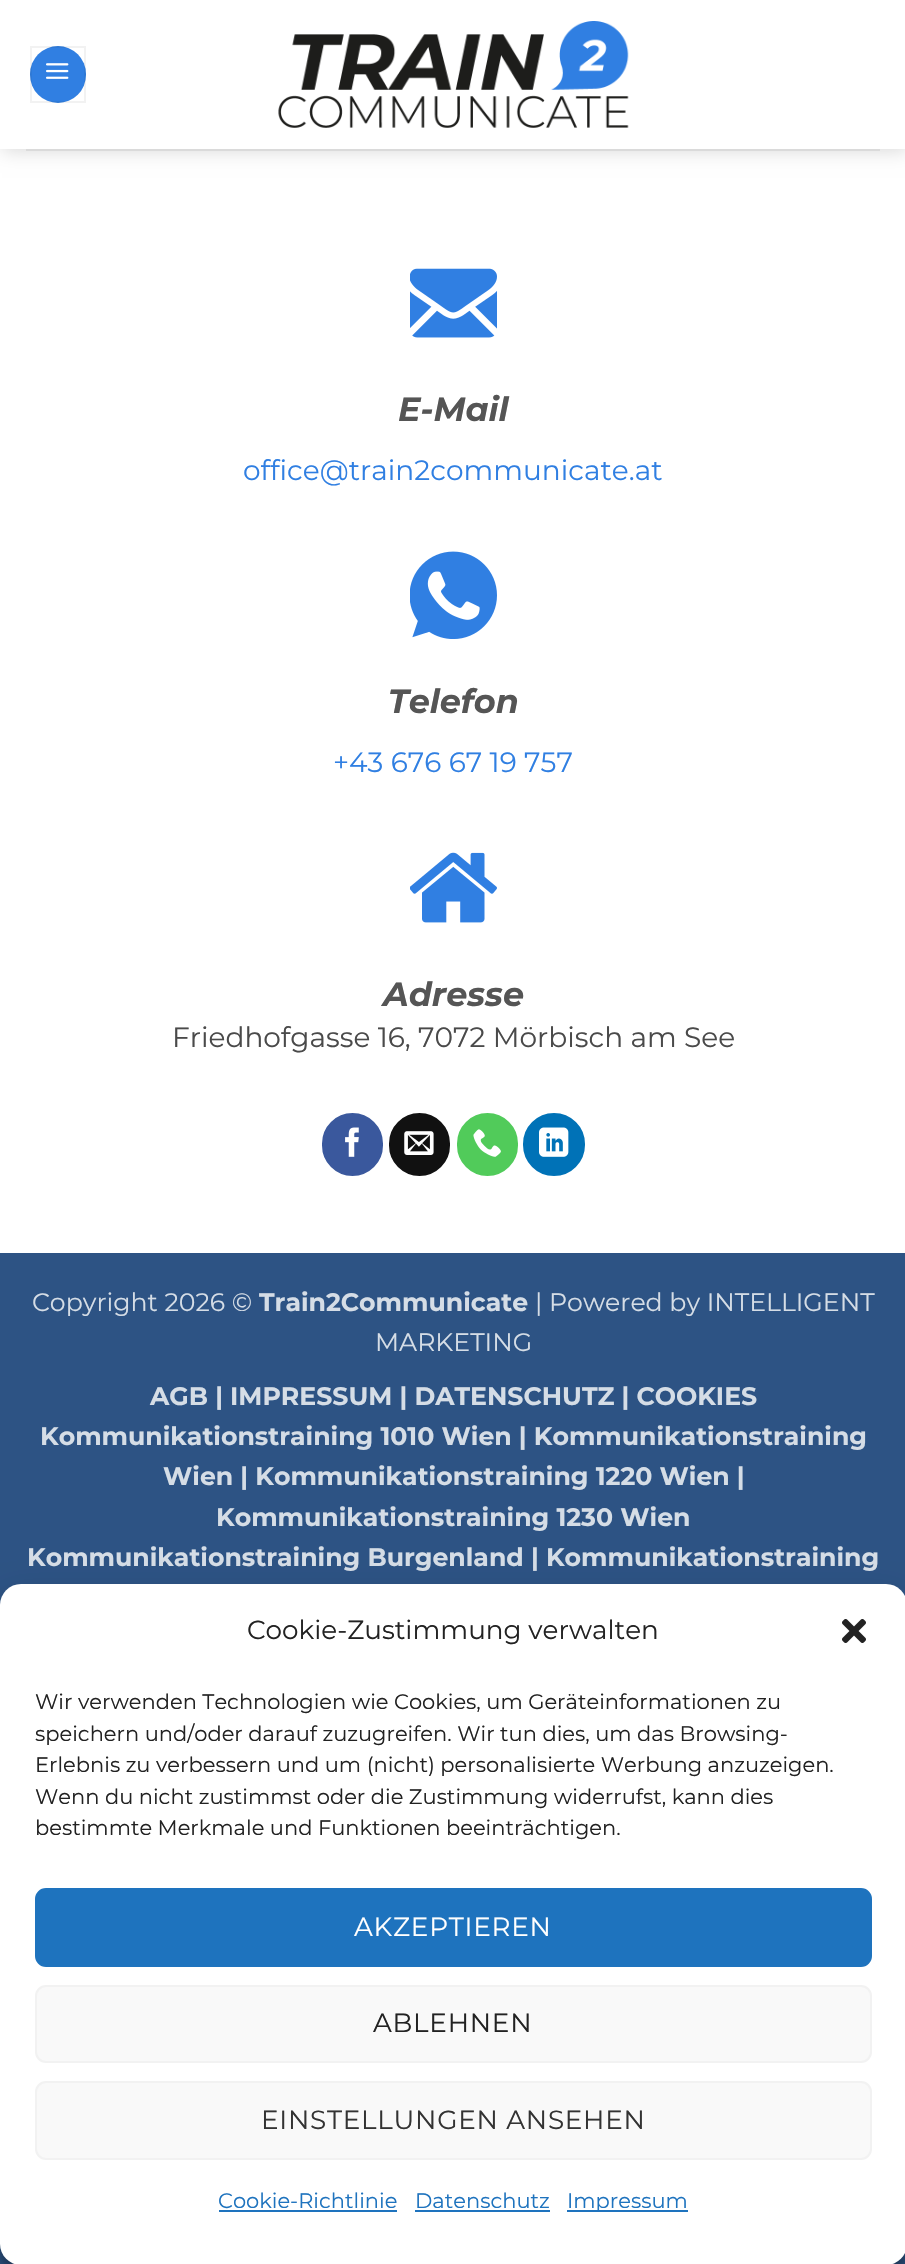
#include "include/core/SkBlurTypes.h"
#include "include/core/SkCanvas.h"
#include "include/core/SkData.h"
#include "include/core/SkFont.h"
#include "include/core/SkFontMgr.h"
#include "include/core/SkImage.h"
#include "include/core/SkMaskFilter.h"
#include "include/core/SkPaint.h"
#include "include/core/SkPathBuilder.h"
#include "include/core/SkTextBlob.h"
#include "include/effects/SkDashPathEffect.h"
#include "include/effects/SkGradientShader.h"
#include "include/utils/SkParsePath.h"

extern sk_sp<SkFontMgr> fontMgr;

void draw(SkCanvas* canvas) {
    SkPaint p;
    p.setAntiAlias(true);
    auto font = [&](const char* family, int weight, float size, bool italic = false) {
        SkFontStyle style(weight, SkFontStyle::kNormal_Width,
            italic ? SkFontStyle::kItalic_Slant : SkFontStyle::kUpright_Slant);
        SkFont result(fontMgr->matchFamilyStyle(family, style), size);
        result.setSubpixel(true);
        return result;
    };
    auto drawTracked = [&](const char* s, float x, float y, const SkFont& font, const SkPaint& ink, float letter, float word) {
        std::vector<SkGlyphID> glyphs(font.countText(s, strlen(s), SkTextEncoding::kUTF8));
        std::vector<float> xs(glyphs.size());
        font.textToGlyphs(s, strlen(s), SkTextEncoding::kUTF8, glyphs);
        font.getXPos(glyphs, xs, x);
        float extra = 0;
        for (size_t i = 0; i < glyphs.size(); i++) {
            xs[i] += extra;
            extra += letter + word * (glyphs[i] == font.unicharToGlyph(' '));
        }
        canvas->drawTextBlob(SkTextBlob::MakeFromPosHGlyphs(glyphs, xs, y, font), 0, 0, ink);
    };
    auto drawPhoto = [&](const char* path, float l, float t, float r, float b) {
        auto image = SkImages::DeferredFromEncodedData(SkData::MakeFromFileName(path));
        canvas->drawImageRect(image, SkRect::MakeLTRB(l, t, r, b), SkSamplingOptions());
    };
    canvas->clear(0xFF2D5384);
    p.setColor(0xFFFFFFFF);
    canvas->drawRect(SkRect::MakeLTRB(0, 0, 905, 1253), p);
    canvas->save();
    canvas->clipPath(SkPathBuilder(SkPathFillType::kEvenOdd).moveTo(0, 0).lineTo(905, 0).lineTo(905, 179).lineTo(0, 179).close().moveTo(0, 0).lineTo(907, 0).lineTo(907, 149).lineTo(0, 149).close().detach(), true);
    p.setColor(0x26000000);
    p.setMaskFilter(SkMaskFilter::MakeBlur(kNormal_SkBlurStyle, 9));
    canvas->drawRect(SkRect::MakeLTRB(2, 2, 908, 151), p);
    p.setMaskFilter(nullptr);
    canvas->restore();
    p.setColor(0xFF307FE2);
    canvas->drawRoundRect(SkRect::MakeLTRB(30, 46, 86, 103), 28, 28, p);
    p.setStyle(SkPaint::kStroke_Style);
    p.setStrokeWidth(2);
    p.setColor(0x0D000000);
    canvas->drawRect(SkRect::MakeLTRB(31, 47, 85, 102), p);
    drawPhoto("media/1.png", 46, 63, 69, 79);
    drawPhoto("media/2.png", 278, 21, 629, 128);
    p.setStyle(SkPaint::kFill_Style);
    p.setColor(0xFFDADADA);
    canvas->drawRect(SkRect::MakeLTRB(26, 149, 880, 151), p);
    p.setColor(0xD1FFFFFF);
    canvas->drawRect(SkRect::MakeLTRB(3, 148, 905, 149), p);
    drawPhoto("media/3.png", 410, 268, 497, 338);
    auto font1 = font("Montserrat", 100, 33.5f, true);
    p.setColor(0xFF555555);
    canvas->drawString("E-Mail", 398, 421, font1, p);
    auto font2 = font("Montserrat", 400, 28);
    p.setColor(0xFF307FE2);
    canvas->drawString("office@train2communicate.at", 243, 480, font2, p);
    drawPhoto("media/4.png", 410, 551, 497, 639);
    p.setColor(0xFF555555);
    canvas->drawString("Telefon", 388, 713, font1, p);
    p.setColor(0xFF307FE2);
    canvas->drawString("+43 676 67 19 757", 333, 772, font2, p);
    drawPhoto("media/5.png", 410, 852, 497, 923);
    p.setColor(0xFF555555);
    canvas->drawString("Adresse", 383, 1006, font1, p);
    p.setColor(0xFF4A4A4A);
    canvas->drawString("Friedhofgasse 16, 7072 Mörbisch am See", 172, 1047, font2, p);
    p.setColor(0xFF3A589D);
    canvas->drawRoundRect(SkRect::MakeLTRB(323, 1114, 382, 1175), 29.5f, 29.5f, p);
    p.setStyle(SkPaint::kStroke_Style);
    canvas->drawRoundRect(SkRect::MakeLTRB(323, 1114, 382, 1175), 29.5f, 29.5f, p);
    drawPhoto("media/6.png", 345, 1127, 359, 1157);
    p.setStyle(SkPaint::kFill_Style);
    p.setColor(0xFF111111);
    canvas->drawRoundRect(SkRect::MakeLTRB(390, 1114, 449, 1175), 29.5f, 29.5f, p);
    p.setStyle(SkPaint::kStroke_Style);
    canvas->drawRoundRect(SkRect::MakeLTRB(390, 1114, 449, 1175), 29.5f, 29.5f, p);
    drawPhoto("media/7.png", 404, 1131, 434, 1155);
    p.setStyle(SkPaint::kFill_Style);
    p.setColor(0xFF51CB5A);
    canvas->drawRoundRect(SkRect::MakeLTRB(458, 1114, 517, 1175), 29.5f, 29.5f, p);
    p.setStyle(SkPaint::kStroke_Style);
    canvas->drawRoundRect(SkRect::MakeLTRB(458, 1114, 517, 1175), 29.5f, 29.5f, p);
    drawPhoto("media/8.png", 473, 1129, 501, 1157);
    p.setStyle(SkPaint::kFill_Style);
    p.setColor(0xFF0072B7);
    canvas->drawRoundRect(SkRect::MakeLTRB(524, 1114, 584, 1175), 30, 30, p);
    p.setStyle(SkPaint::kStroke_Style);
    canvas->drawRoundRect(SkRect::MakeLTRB(524, 1114, 584, 1175), 30, 30, p);
    drawPhoto("media/9.png", 539, 1127, 569, 1157);
    auto font3 = font("Montserrat", 400, 25.2f);
    p.setStyle(SkPaint::kFill_Style);
    p.setColor(0xFFD5DDE6);
    canvas->drawString("Copyright 2026 ©", 32, 1311, font3, p);
    auto font4 = font("Montserrat", 700, 25.2f);
    canvas->drawString("Train2Communicate", 259, 1311, font4, p);
    canvas->drawString("| Powered by INTELLIGENT", 535, 1311, font3, p);
    canvas->drawString("MARKETING", 375, 1351, font3, p);
    {
        const struct { const char* s; float x, y; } items[] = {
            {"AGB | IMPRESSUM | DATENSCHUTZ | COOKIES", 150, 1405},
            {"Kommunikationstraining 1010 Wien | Kommunikationstraining", 40, 1445},
            {"Wien | Kommunikationstraining 1220 Wien |", 163, 1485},
            {"Kommunikationstraining 1230 Wien", 216, 1526},
            {"Kommunikationstraining Burgenland", 27, 1566},
            {"| Kommunikationstraining", 531, 1566},
        };
        for (auto [s, x, y] : items) {
            canvas->drawString(s, x, y, font4, p);
        }
    }
    p.setColor(0x3B000000);
    p.setMaskFilter(SkMaskFilter::MakeBlur(kNormal_SkBlurStyle, 5));
    canvas->drawRoundRect(SkRect::MakeLTRB(0, 1594, 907, 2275), 21, 21, p);
    p.setMaskFilter(nullptr);
    p.setColor(0x30000000);
    p.setMaskFilter(SkMaskFilter::MakeBlur(kNormal_SkBlurStyle, 17.5f));
    canvas->drawRoundRect(SkRect::MakeLTRB(0, 1601, 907, 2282), 21, 21, p);
    p.setMaskFilter(nullptr);
    p.setColor(0xFFFFFFFF);
    canvas->drawRoundRect(SkRect::MakeLTRB(0, 1584, 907, 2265), 21, 21, p);
    auto font5 = font("Montserrat", 400, 26.25f);
    p.setColor(0xFF222222);
    canvas->drawString("Cookie-Zustimmung verwalten", 247, 1639, font5, p);
    drawPhoto("media/10.png", 842, 1619, 866, 1643);
    auto font6 = font("Montserrat", 400, 21);
    {
        const struct { const char* s; float x, y; } items[] = {
            {"Wir verwenden Technologien wie Cookies, um Geräteinformationen zu", 35, 1709},
            {"speichern und/oder darauf zuzugreifen. Wir tun dies, um das Browsing-", 35, 1741},
            {"Erlebnis zu verbessern und um (nicht) personalisierte Werbung anzuzeigen.", 35, 1772},
            {"Wenn du nicht zustimmst oder die Zustimmung widerrufst, kann dies", 35, 1804},
            {"bestimmte Merkmale und Funktionen beeinträchtigen.", 35, 1835},
        };
        for (auto [s, x, y] : items) {
            canvas->drawString(s, x, y, font6, p);
        }
    }
    p.setColor(0xFF1E73BE);
    canvas->drawRoundRect(SkRect::MakeLTRB(36, 1889, 871, 1966), 10, 10, p);
    p.setStyle(SkPaint::kStroke_Style);
    canvas->drawRoundRect(SkRect::MakeLTRB(36, 1889, 871, 1966), 10, 10, p);
    p.setStyle(SkPaint::kFill_Style);
    p.setColor(0xFFFFFFFF);
    drawTracked("AKZEPTIEREN", 354, 1936, font5, p, 0.75f, 0);
    p.setColor(0xFFF9F9F9);
    canvas->drawRoundRect(SkRect::MakeLTRB(36, 1986, 871, 2062), 10, 10, p);
    p.setStyle(SkPaint::kStroke_Style);
    p.setColor(0xFFF2F2F2);
    canvas->drawRoundRect(SkRect::MakeLTRB(36, 1986, 871, 2062), 10, 10, p);
    p.setStyle(SkPaint::kFill_Style);
    p.setColor(0xFF222222);
    drawTracked("ABLEHNEN", 373, 2032, font5, p, 0.75f, 0);
    p.setColor(0xFFF9F9F9);
    canvas->drawRoundRect(SkRect::MakeLTRB(36, 2082, 871, 2159), 10, 10, p);
    p.setStyle(SkPaint::kStroke_Style);
    p.setColor(0xFFF2F2F2);
    canvas->drawRoundRect(SkRect::MakeLTRB(36, 2082, 871, 2159), 10, 10, p);
    p.setStyle(SkPaint::kFill_Style);
    p.setColor(0xFF333333);
    drawTracked("EINSTELLUNGEN ANSEHEN", 261, 2129, font5, p, 0.75f, 0);
    p.setColor(0xFF1E73BE);
    canvas->drawString("Cookie-Richtlinie", 218, 2208, font6, p);
    canvas->drawRect(SkRect::MakeLTRB(219, 2210, 397, 2212), p);
    canvas->drawString("Datenschutz", 415, 2208, font6, p);
    canvas->drawRect(SkRect::MakeLTRB(415, 2210, 550, 2212), p);
    canvas->drawRect(SkRect::MakeLTRB(567, 2210, 688, 2212), p);
    canvas->drawString("Impressum", 567, 2208, font6, p);
}
